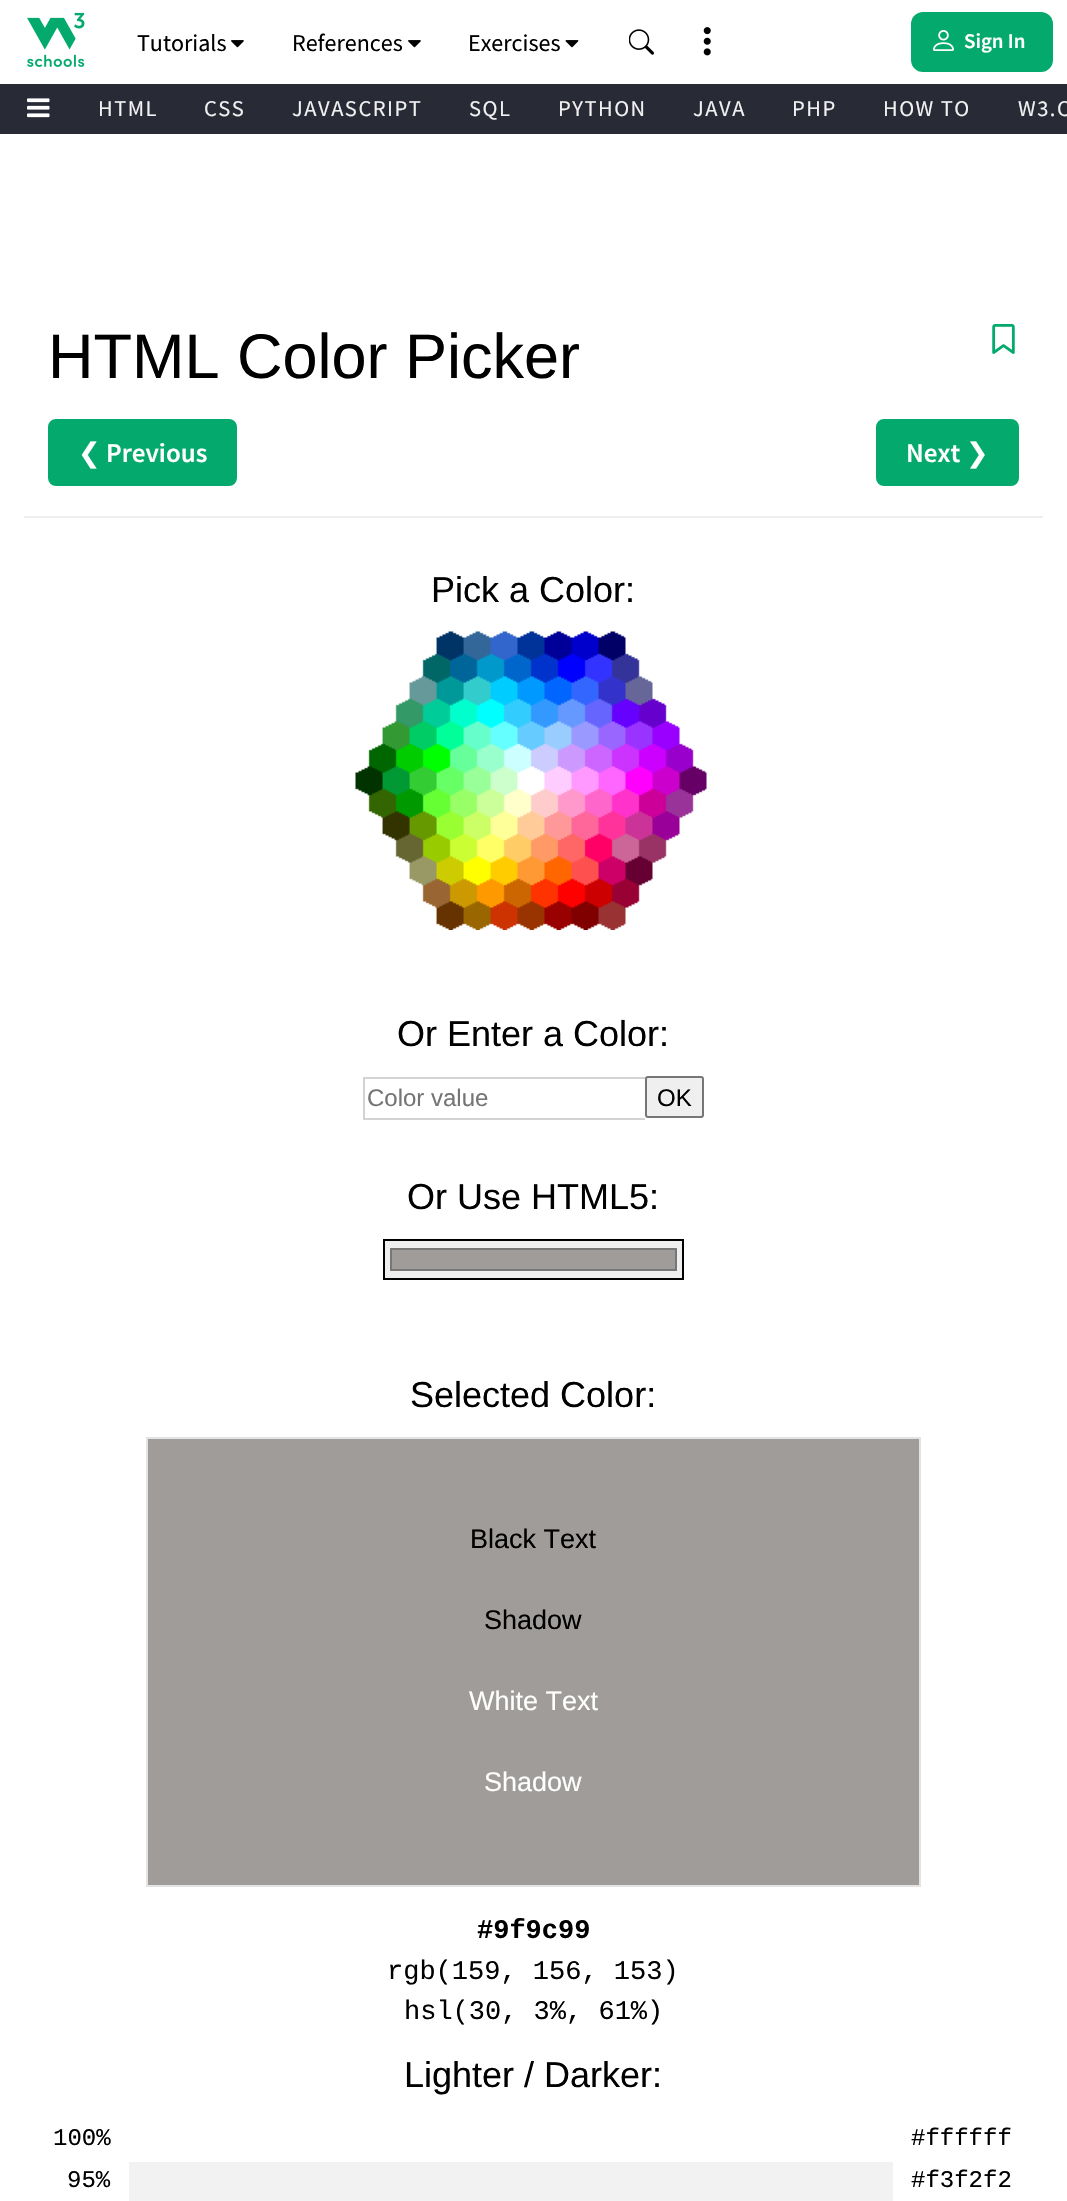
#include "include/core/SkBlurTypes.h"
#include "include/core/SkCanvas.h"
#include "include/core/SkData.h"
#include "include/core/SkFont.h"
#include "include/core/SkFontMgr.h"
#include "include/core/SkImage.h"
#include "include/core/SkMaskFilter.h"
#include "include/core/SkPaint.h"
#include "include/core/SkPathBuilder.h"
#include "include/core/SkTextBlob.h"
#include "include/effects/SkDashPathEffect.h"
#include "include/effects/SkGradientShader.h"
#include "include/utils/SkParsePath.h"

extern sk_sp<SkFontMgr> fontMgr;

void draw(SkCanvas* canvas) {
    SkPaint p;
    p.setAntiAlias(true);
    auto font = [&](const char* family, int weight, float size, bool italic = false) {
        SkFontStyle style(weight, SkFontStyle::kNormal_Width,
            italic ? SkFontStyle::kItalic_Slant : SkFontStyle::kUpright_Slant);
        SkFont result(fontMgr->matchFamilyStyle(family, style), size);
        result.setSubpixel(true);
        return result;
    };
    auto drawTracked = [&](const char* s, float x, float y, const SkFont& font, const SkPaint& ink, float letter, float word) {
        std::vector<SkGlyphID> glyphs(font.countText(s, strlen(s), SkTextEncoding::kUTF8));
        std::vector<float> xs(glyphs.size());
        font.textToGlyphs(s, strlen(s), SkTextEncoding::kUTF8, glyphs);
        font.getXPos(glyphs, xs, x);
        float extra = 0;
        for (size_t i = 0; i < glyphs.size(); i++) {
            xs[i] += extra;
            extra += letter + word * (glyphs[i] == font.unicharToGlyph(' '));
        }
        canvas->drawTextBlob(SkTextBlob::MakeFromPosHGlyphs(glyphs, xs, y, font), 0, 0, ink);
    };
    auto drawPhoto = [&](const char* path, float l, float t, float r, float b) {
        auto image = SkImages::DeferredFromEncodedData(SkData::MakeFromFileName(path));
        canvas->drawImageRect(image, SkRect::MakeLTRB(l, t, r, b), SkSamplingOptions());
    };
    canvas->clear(0xFFFFFFFF);
    drawPhoto("media/1.png", 27, 12, 85, 67);
    auto font1 = font("Source Sans Pro", 400, 24);
    p.setColor(0xFF000000);
    canvas->drawString("Tutorials", 137, 51, font1, p);
    drawPhoto("media/2.png", 231, 40, 244, 48);
    canvas->drawString("References", 292, 51, font1, p);
    drawPhoto("media/2.png", 408, 40, 421, 48);
    canvas->drawString("Exercises", 468, 51, font1, p);
    drawPhoto("media/3.png", 565, 40, 579, 48);
    drawPhoto("media/4.png", 629, 29, 654, 55);
    drawPhoto("media/5.png", 703, 27, 711, 56);
    p.setColor(0xFF04AA6D);
    canvas->drawRoundRect(SkRect::MakeLTRB(911, 12, 1053, 72), 12, 12, p);
    drawPhoto("media/6.png", 933, 30, 954, 51);
    auto font2 = font("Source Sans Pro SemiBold", 600, 21);
    p.setColor(0xFFFFFFFF);
    canvas->drawString("Sign In", 964, 48, font2, p);
    p.setColor(0xFF282A35);
    canvas->drawRect(SkRect::MakeLTRB(0, 84, 1067, 134), p);
    drawPhoto("media/7.png", 27, 98, 50, 118);
    auto font3 = font("Source Sans Pro", 400, 22.5f);
    p.setColor(0xFFF1F1F1);
    {
        const struct { const char* s; float x, y; } items[] = {
            {"HTML", 98, 116},
            {"CSS", 204, 116},
            {"JAVASCRIPT", 292, 116},
            {"SQL", 469, 116},
            {"PYTHON", 558, 116},
            {"JAVA", 693, 116},
            {"PHP", 792, 116},
            {"HOW TO", 883, 116},
            {"W3.C", 1018, 116},
        };
        for (auto [s, x, y] : items) {
            drawTracked(s, x, y, font3, p, 1.5f, 0);
        }
    }
    auto font4 = font("Liberation Sans", 400, 63);
    p.setColor(0xFF000000);
    canvas->drawString("HTML Color Picker", 48, 378, font4, p);
    drawPhoto("media/8.png", 992, 324, 1015, 354);
    p.setColor(0xFF04AA6D);
    canvas->drawRoundRect(SkRect::MakeLTRB(49, 420, 236, 485), 7, 7, p);
    p.setStyle(SkPaint::kStroke_Style);
    p.setStrokeWidth(2);
    canvas->drawRoundRect(SkRect::MakeLTRB(49, 420, 236, 485), 7, 7, p);
    auto font5 = font("DejaVu Sans", 400, 27);
    p.setStyle(SkPaint::kFill_Style);
    p.setColor(0xFFFFFFFF);
    canvas->drawString("❮", 78, 462, font5, p);
    auto font6 = font("Source Sans Pro SemiBold", 600, 27);
    canvas->drawString("Previous", 106, 462, font6, p);
    p.setColor(0xFF04AA6D);
    canvas->drawRoundRect(SkRect::MakeLTRB(877, 420, 1018, 485), 7, 7, p);
    p.setStyle(SkPaint::kStroke_Style);
    canvas->drawRoundRect(SkRect::MakeLTRB(877, 420, 1018, 485), 7, 7, p);
    p.setStyle(SkPaint::kFill_Style);
    p.setColor(0xFFFFFFFF);
    canvas->drawString("Next", 906, 462, font6, p);
    canvas->drawString("❯", 966, 462, font5, p);
    p.setColor(0xFFEEEEEE);
    canvas->drawRect(SkRect::MakeLTRB(24, 516, 1043, 518), p);
    auto font7 = font("Liberation Sans", 400, 36);
    p.setColor(0xFF000000);
    canvas->drawString("Pick a Color:", 431, 602, font7, p);
    drawPhoto("media/9.png", 355, 631, 707, 930);
    canvas->drawString("Or Enter a Color:", 397, 1046, font7, p);
    {
        const struct { float l, t, r, b; SkColor color; } items[] = {
            {363, 1077, 645, 1079, 0xFFD3D3D3},
            {363, 1118, 645, 1120, 0xFFD3D3D3},
            {363, 1077, 365, 1119, 0xFFD3D3D3},
        };
        for (auto [l, t, r, b, color] : items) {
            p.setColor(color);
            canvas->drawRect(SkRect::MakeLTRB(l, t, r, b), p);
        }
    }
    auto font8 = font("Liberation Sans", 400, 24);
    p.setColor(0xFF757575);
    canvas->drawString("Color value", 367, 1106, font8, p);
    p.setColor(0xFFEFEFEF);
    canvas->drawRoundRect(SkRect::MakeLTRB(646, 1077, 703, 1117), 2, 2, p);
    p.setStyle(SkPaint::kStroke_Style);
    p.setColor(0xFF767676);
    canvas->drawRoundRect(SkRect::MakeLTRB(646, 1077, 703, 1117), 2, 2, p);
    p.setStyle(SkPaint::kFill_Style);
    p.setColor(0xFF000000);
    canvas->drawString("OK", 657, 1106, font8, p);
    canvas->drawString("Or Use HTML5:", 407, 1209, font7, p);
    p.setColor(0xFFEFEFEF);
    canvas->drawRect(SkRect::MakeLTRB(384, 1240, 683, 1279), p);
    p.setStyle(SkPaint::kStroke_Style);
    p.setColor(0xFF000000);
    canvas->drawRect(SkRect::MakeLTRB(384, 1240, 683, 1279), p);
    p.setStyle(SkPaint::kFill_Style);
    p.setColor(0xFF9F9C99);
    canvas->drawRect(SkRect::MakeLTRB(391, 1249, 676, 1270), p);
    p.setStyle(SkPaint::kStroke_Style);
    p.setColor(0xFF777777);
    canvas->drawRect(SkRect::MakeLTRB(391, 1249, 676, 1270), p);
    p.setStyle(SkPaint::kFill_Style);
    p.setColor(0xFF000000);
    canvas->drawString("Selected Color:", 410, 1407, font7, p);
    p.setColor(0xFF9F9C99);
    canvas->drawRect(SkRect::MakeLTRB(147, 1438, 920, 1886), p);
    p.setStyle(SkPaint::kStroke_Style);
    p.setColor(0xFFE3E3E3);
    canvas->drawRect(SkRect::MakeLTRB(147, 1438, 920, 1886), p);
    auto font9 = font("Liberation Sans", 400, 27);
    p.setStyle(SkPaint::kFill_Style);
    p.setColor(0xFF000000);
    canvas->drawString("Black Text", 470, 1548, font9, p);
    canvas->drawString("Shadow", 484, 1629, font9, p);
    p.setColor(0xFFFFFFFF);
    canvas->drawString("White Text", 469, 1710, font9, p);
    canvas->drawString("Shadow", 484, 1791, font9, p);
    auto font10 = font("Liberation Mono", 700, 27);
    p.setColor(0xFF000000);
    canvas->drawString("#9f9c99", 477, 1938, font10, p);
    auto font11 = font("Liberation Mono", 400, 27);
    canvas->drawString("rgb(159, 156, 153)", 387, 1979, font11, p);
    canvas->drawString("hsl(30, 3%, 61%)", 404, 2019, font11, p);
    canvas->drawString("Lighter / Darker:", 404, 2087, font7, p);
    auto font12 = font("Liberation Mono", 400, 24);
    {
        const struct { const char* s; float x, y; } items[] = {
            {"100%", 53, 2145},
            {"#ffffff", 911, 2145},
            {"95%", 67, 2187},
        };
        for (auto [s, x, y] : items) {
            canvas->drawString(s, x, y, font12, p);
        }
    }
    p.setColor(0xFFF3F2F2);
    canvas->drawRect(SkRect::MakeLTRB(129, 2162, 893, 2201), p);
    p.setColor(0xFF000000);
    canvas->drawString("#f3f2f2", 911, 2187, font12, p);
}
